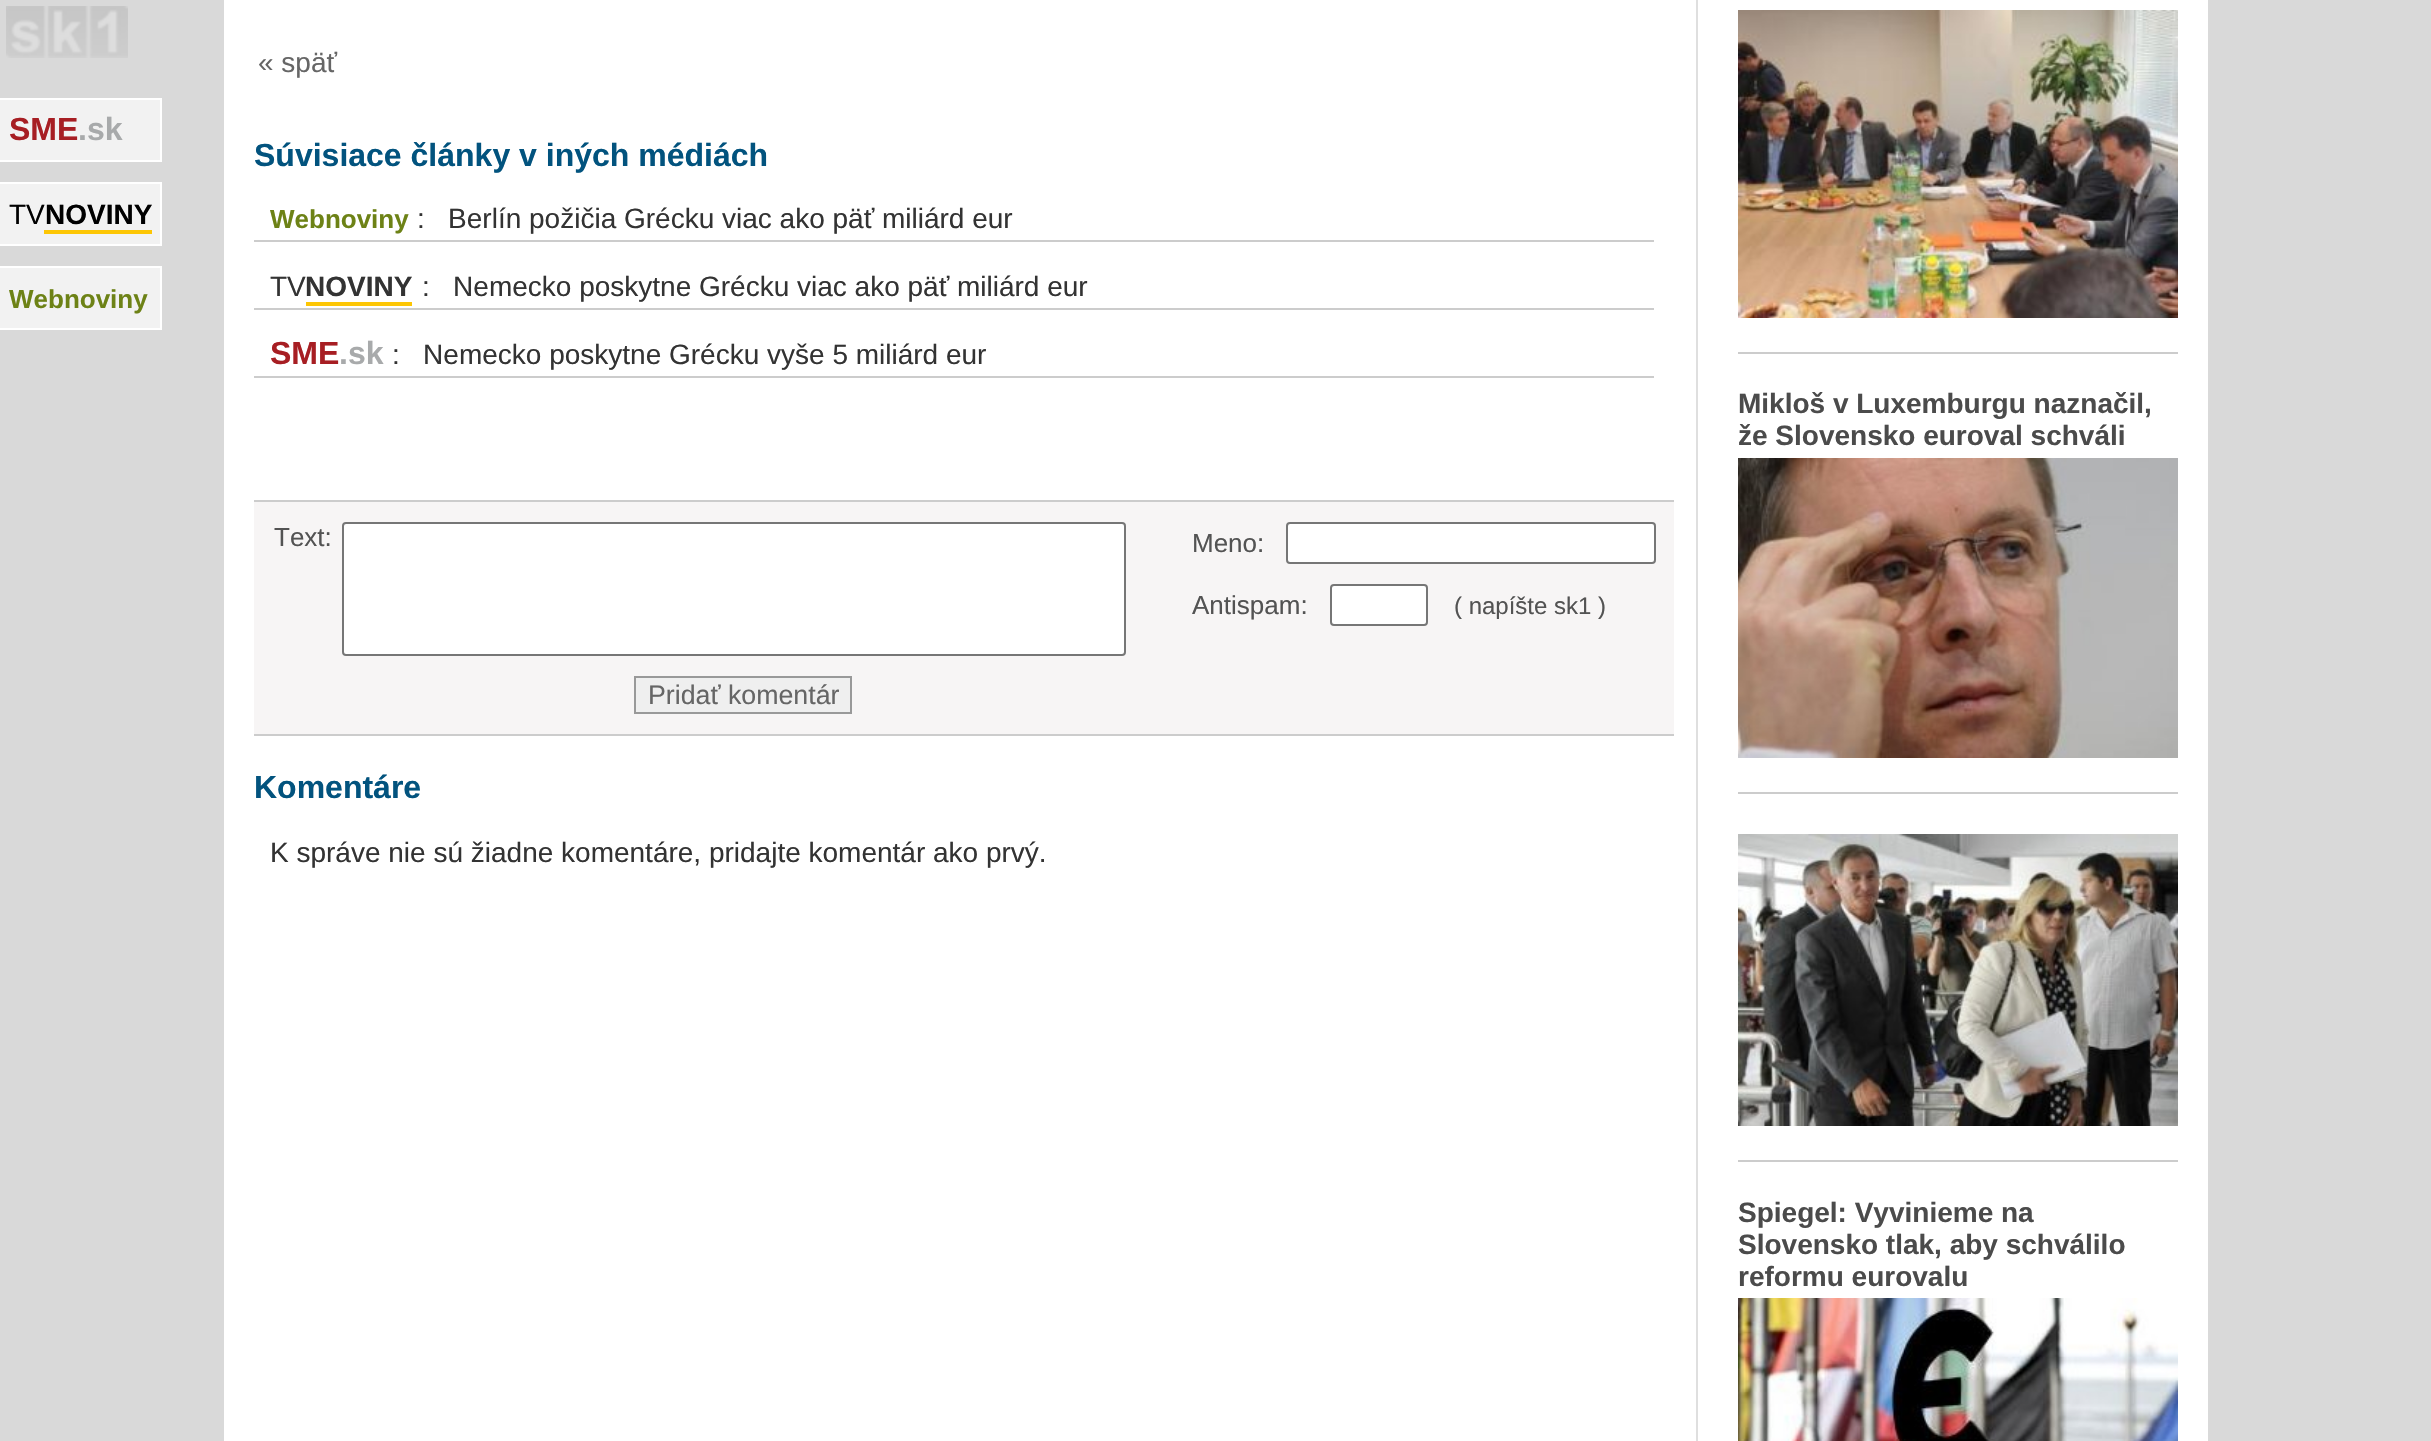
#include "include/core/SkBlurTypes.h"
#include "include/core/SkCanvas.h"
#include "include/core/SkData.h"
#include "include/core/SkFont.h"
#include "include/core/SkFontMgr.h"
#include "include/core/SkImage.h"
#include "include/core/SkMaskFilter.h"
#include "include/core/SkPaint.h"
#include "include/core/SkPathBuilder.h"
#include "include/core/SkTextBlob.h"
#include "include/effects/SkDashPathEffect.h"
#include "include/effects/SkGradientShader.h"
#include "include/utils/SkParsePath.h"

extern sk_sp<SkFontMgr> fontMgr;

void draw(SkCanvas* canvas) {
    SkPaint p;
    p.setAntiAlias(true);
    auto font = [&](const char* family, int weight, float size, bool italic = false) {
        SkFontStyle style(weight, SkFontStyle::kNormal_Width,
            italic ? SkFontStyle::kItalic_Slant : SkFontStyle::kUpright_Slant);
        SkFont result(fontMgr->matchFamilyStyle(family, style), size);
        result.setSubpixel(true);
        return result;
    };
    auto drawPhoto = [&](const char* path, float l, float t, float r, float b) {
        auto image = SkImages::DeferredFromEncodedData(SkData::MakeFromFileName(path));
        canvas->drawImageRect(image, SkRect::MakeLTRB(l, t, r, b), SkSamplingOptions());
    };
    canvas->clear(0xFFD9D9D9);
    {
        const struct { float l, t, r, b; SkColor color; } items[] = {
            {0, 100, 160, 160, 0xFFF2F2F2},
            {0, 98, 162, 100, 0xFFFFFFFF},
            {160, 98, 162, 162, 0xFFFFFFFF},
            {0, 160, 162, 162, 0xFFFFFFFF},
        };
        for (auto [l, t, r, b, color] : items) {
            p.setColor(color);
            canvas->drawRect(SkRect::MakeLTRB(l, t, r, b), p);
        }
    }
    auto font1 = font("Liberation Sans", 700, 32);
    p.setColor(0xFFA71E23);
    canvas->drawString("SME", 9, 140, font1, p);
    p.setColor(0xFFA8AAAB);
    canvas->drawString(".sk", 78, 140, font1, p);
    {
        const struct { float l, t, r, b; SkColor color; } items[] = {
            {0, 184, 160, 244, 0xFFF2F2F2},
            {0, 182, 162, 184, 0xFFFFFFFF},
            {160, 182, 162, 246, 0xFFFFFFFF},
            {0, 244, 162, 246, 0xFFFFFFFF},
        };
        for (auto [l, t, r, b, color] : items) {
            p.setColor(color);
            canvas->drawRect(SkRect::MakeLTRB(l, t, r, b), p);
        }
    }
    auto font2 = font("Liberation Sans", 400, 28);
    p.setColor(0xFF000000);
    canvas->drawString("TV", 9, 224, font2, p);
    auto font3 = font("Liberation Sans", 700, 28);
    canvas->drawString("NOVINY", 45, 224, font3, p);
    {
        const struct { float l, t, r, b; SkColor color; } items[] = {
            {44, 230, 152, 234, 0xFFFDC604},
            {0, 268, 160, 328, 0xFFF2F2F2},
            {0, 266, 162, 268, 0xFFFFFFFF},
            {160, 266, 162, 330, 0xFFFFFFFF},
            {0, 328, 162, 330, 0xFFFFFFFF},
        };
        for (auto [l, t, r, b, color] : items) {
            p.setColor(color);
            canvas->drawRect(SkRect::MakeLTRB(l, t, r, b), p);
        }
    }
    auto font4 = font("Liberation Sans", 700, 26);
    p.setColor(0xFF6D8216);
    canvas->drawString("Webnoviny", 9, 308, font4, p);
    drawPhoto("media/1.png", 6, 6, 128, 58);
    p.setColor(0xFFFFFFFF);
    canvas->drawRect(SkRect::MakeLTRB(224, 0, 2208, 1441), p);
    p.setColor(0xFF666666);
    canvas->drawString("« späť", 258, 72, font2, p);
    p.setColor(0xFF02537E);
    canvas->drawString("Súvisiace články v iných médiách", 254, 166, font1, p);
    p.setColor(0xFFCCCCCC);
    canvas->drawRect(SkRect::MakeLTRB(254, 240, 1654, 242), p);
    p.setColor(0xFF6D8216);
    canvas->drawString("Webnoviny", 270, 228, font4, p);
    p.setColor(0xFF333333);
    canvas->drawString(":   Berlín požičia Grécku viac ako päť miliárd eur", 417, 228, font2, p);
    p.setColor(0xFFCCCCCC);
    canvas->drawRect(SkRect::MakeLTRB(254, 308, 1654, 310), p);
    p.setColor(0xFF333333);
    canvas->drawString("TV", 270, 296, font2, p);
    canvas->drawString("NOVINY", 305, 296, font3, p);
    p.setColor(0xFFFDC604);
    canvas->drawRect(SkRect::MakeLTRB(306, 302, 412, 306), p);
    p.setColor(0xFF333333);
    canvas->drawString(":   Nemecko poskytne Grécku viac ako päť miliárd eur", 422, 296, font2, p);
    p.setColor(0xFFCCCCCC);
    canvas->drawRect(SkRect::MakeLTRB(254, 376, 1654, 378), p);
    p.setColor(0xFFA71E23);
    canvas->drawString("SME", 270, 364, font1, p);
    p.setColor(0xFFA8AAAB);
    canvas->drawString(".sk", 339, 364, font1, p);
    p.setColor(0xFF333333);
    canvas->drawString(":   Nemecko poskytne Grécku vyše 5 miliárd eur", 392, 364, font2, p);
    {
        const struct { float l, t, r, b; SkColor color; } items[] = {
            {254, 502, 1674, 734, 0xFFF7F5F5},
            {254, 500, 1674, 502, 0xFFCCCCCC},
            {254, 734, 1674, 736, 0xFFCCCCCC},
        };
        for (auto [l, t, r, b, color] : items) {
            p.setColor(color);
            canvas->drawRect(SkRect::MakeLTRB(l, t, r, b), p);
        }
    }
    auto font5 = font("Liberation Sans", 400, 26);
    p.setColor(0xFF535353);
    canvas->drawString("Text:", 274, 546, font5, p);
    p.setColor(0xFFFFFFFF);
    canvas->drawRoundRect(SkRect::MakeLTRB(343, 523, 1125, 655), 3, 3, p);
    p.setStyle(SkPaint::kStroke_Style);
    p.setStrokeWidth(2);
    p.setColor(0xFF767676);
    canvas->drawRoundRect(SkRect::MakeLTRB(343, 523, 1125, 655), 3, 3, p);
    p.setStyle(SkPaint::kFill_Style);
    p.setColor(0xFF535353);
    canvas->drawString("Meno:", 1192, 552, font5, p);
    p.setColor(0xFFFFFFFF);
    canvas->drawRoundRect(SkRect::MakeLTRB(1287, 523, 1655, 563), 3, 3, p);
    p.setStyle(SkPaint::kStroke_Style);
    p.setColor(0xFF767676);
    canvas->drawRoundRect(SkRect::MakeLTRB(1287, 523, 1655, 563), 3, 3, p);
    p.setStyle(SkPaint::kFill_Style);
    p.setColor(0xFF535353);
    canvas->drawString("Antispam:", 1192, 614, font5, p);
    p.setColor(0xFFFFFFFF);
    canvas->drawRoundRect(SkRect::MakeLTRB(1331, 585, 1427, 625), 3, 3, p);
    p.setStyle(SkPaint::kStroke_Style);
    p.setColor(0xFF767676);
    canvas->drawRoundRect(SkRect::MakeLTRB(1331, 585, 1427, 625), 3, 3, p);
    auto font6 = font("Liberation Sans", 400, 24);
    p.setStyle(SkPaint::kFill_Style);
    p.setColor(0xFF535353);
    canvas->drawString("( napíšte sk1 )", 1454, 614, font6, p);
    p.setColor(0xFFEFEFEF);
    canvas->drawRect(SkRect::MakeLTRB(635, 677, 851, 713), p);
    p.setStyle(SkPaint::kStroke_Style);
    p.setColor(0xFF999999);
    canvas->drawRect(SkRect::MakeLTRB(635, 677, 851, 713), p);
    auto font7 = font("Liberation Sans", 400, 26.75f);
    p.setStyle(SkPaint::kFill_Style);
    p.setColor(0xFF666666);
    canvas->drawString("Pridať komentár", 648, 704, font7, p);
    p.setColor(0xFF02537E);
    canvas->drawString("Komentáre", 254, 798, font1, p);
    p.setColor(0xFF333333);
    canvas->drawString("K správe nie sú žiadne komentáre, pridajte komentár ako prvý.", 270, 862, font2, p);
    p.setColor(0xFFDFDFDF);
    canvas->drawRect(SkRect::MakeLTRB(1696, 0, 1698, 1441), p);
    p.setColor(0xFFCCCCCC);
    canvas->drawRect(SkRect::MakeLTRB(1738, 352, 2178, 354), p);
    drawPhoto("media/2.png", 1738, 10, 2178, 318);
    canvas->drawRect(SkRect::MakeLTRB(1738, 792, 2178, 794), p);
    p.setColor(0xFF4B4B4B);
    canvas->drawString("Mikloš v Luxemburgu naznačil,", 1738, 413, font3, p);
    canvas->drawString("že Slovensko euroval schváli", 1738, 445, font3, p);
    drawPhoto("media/3.png", 1738, 458, 2178, 758);
    p.setColor(0xFFCCCCCC);
    canvas->drawRect(SkRect::MakeLTRB(1738, 1160, 2178, 1162), p);
    drawPhoto("media/4.png", 1738, 834, 2178, 1126);
    p.setColor(0xFF4B4B4B);
    {
        const struct { const char* s; float x, y; } items[] = {
            {"Spiegel: Vyvinieme na", 1738, 1222},
            {"Slovensko tlak, aby schválilo", 1738, 1254},
            {"reformu eurovalu", 1738, 1286},
        };
        for (auto [s, x, y] : items) {
            canvas->drawString(s, x, y, font3, p);
        }
    }
    drawPhoto("media/5.png", 1738, 1298, 2178, 1441);
}
